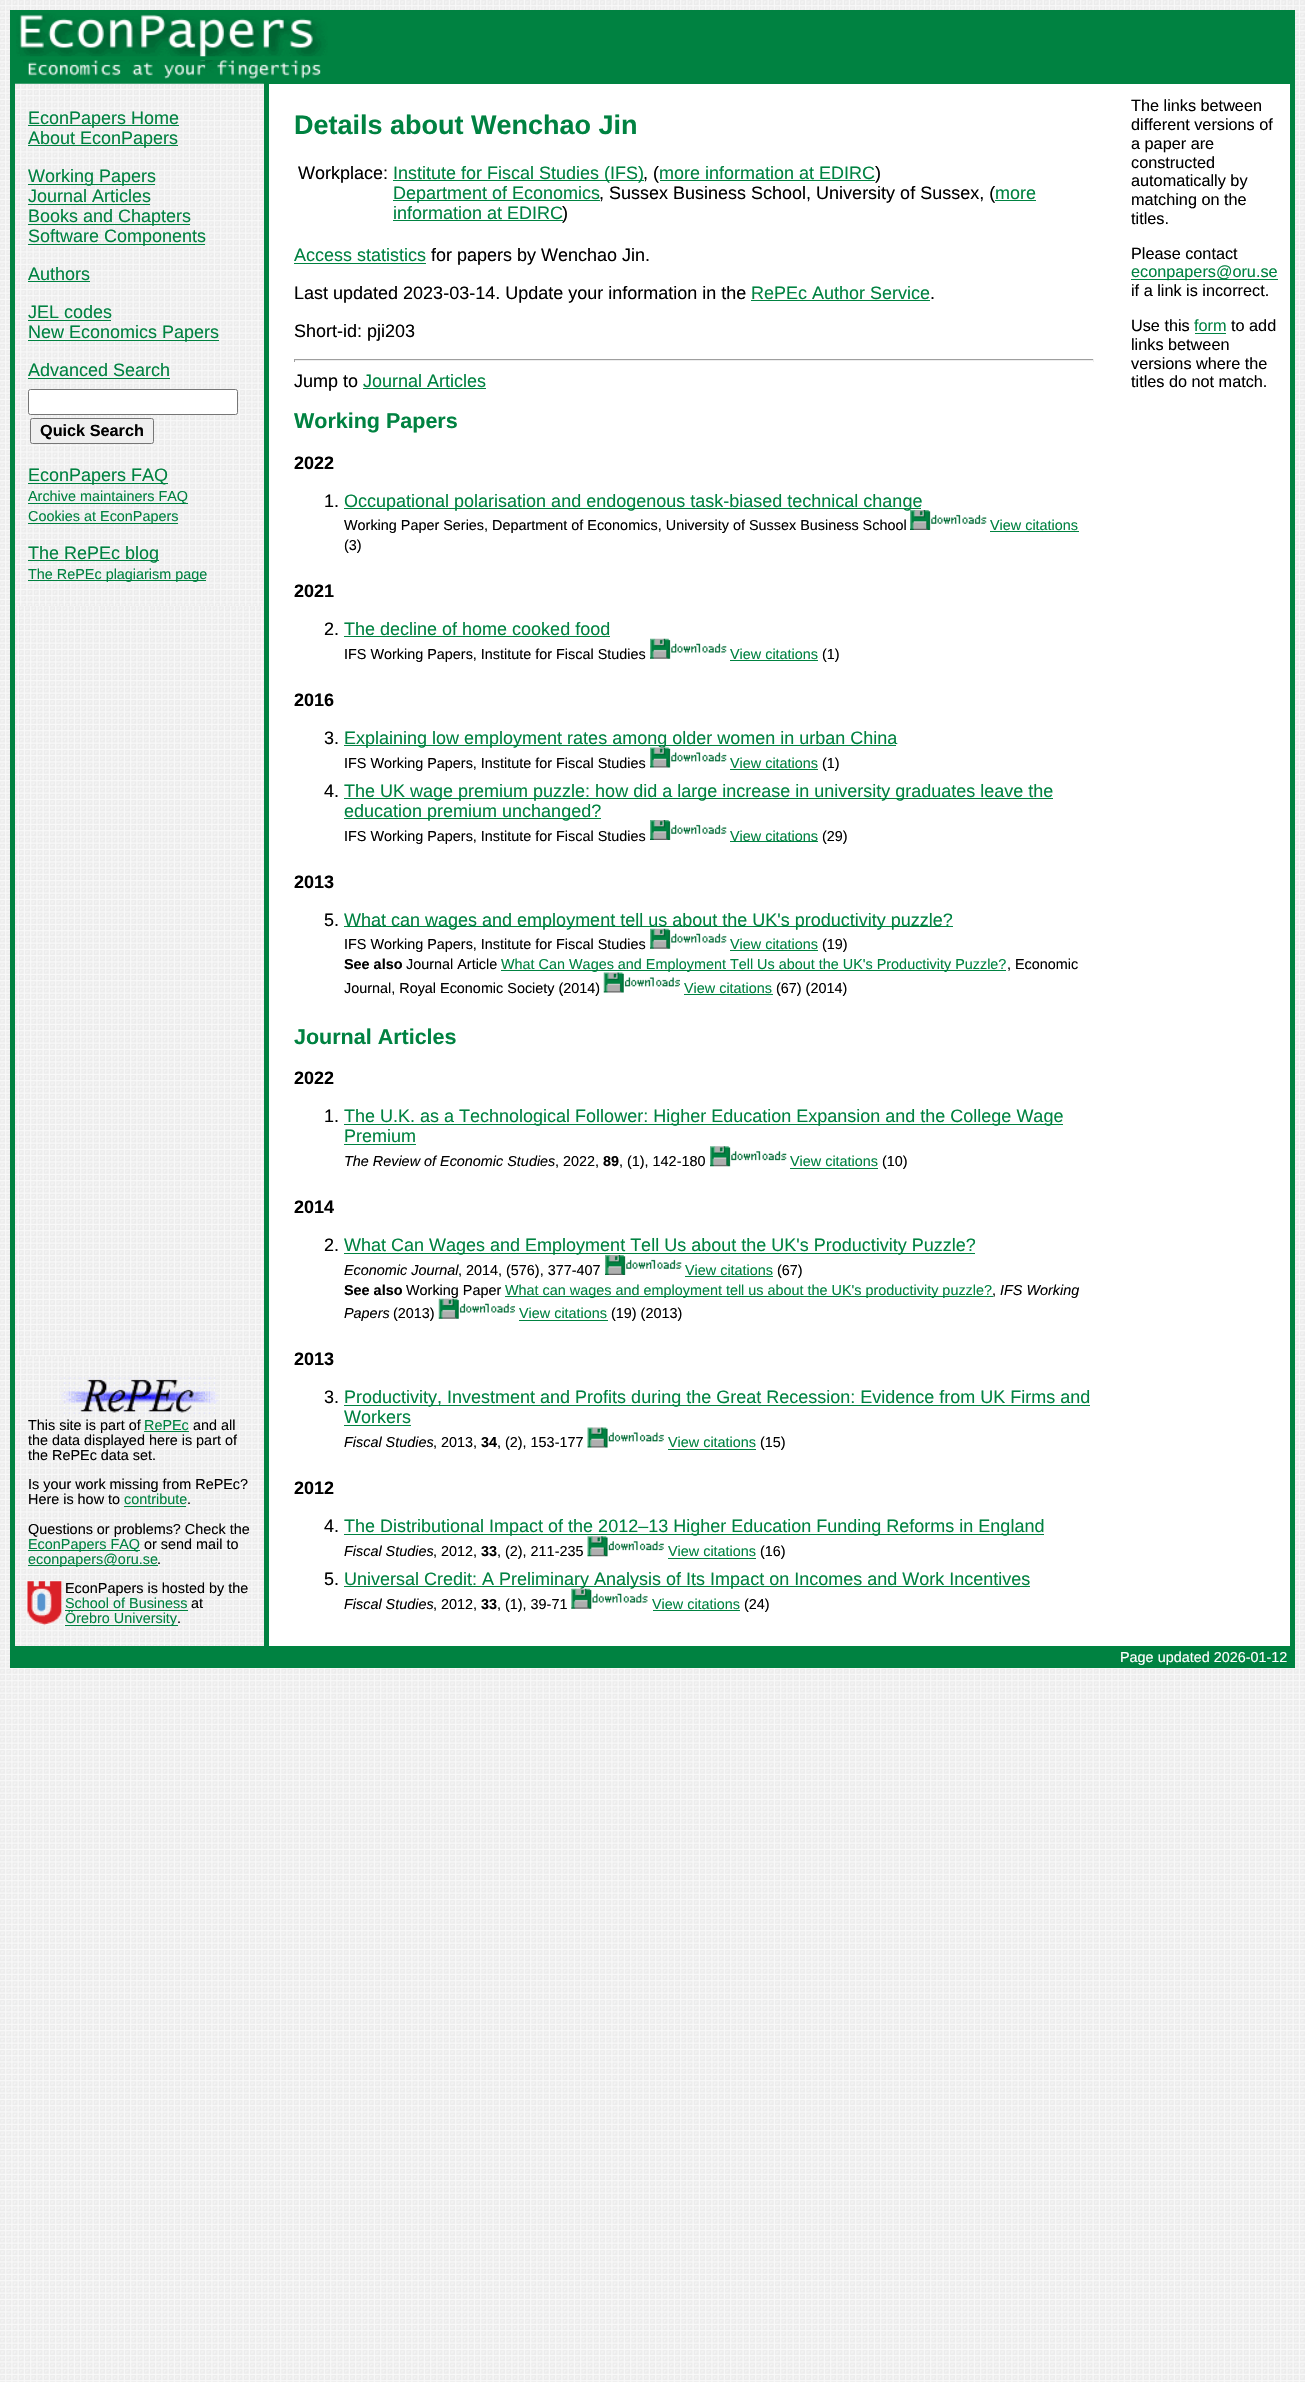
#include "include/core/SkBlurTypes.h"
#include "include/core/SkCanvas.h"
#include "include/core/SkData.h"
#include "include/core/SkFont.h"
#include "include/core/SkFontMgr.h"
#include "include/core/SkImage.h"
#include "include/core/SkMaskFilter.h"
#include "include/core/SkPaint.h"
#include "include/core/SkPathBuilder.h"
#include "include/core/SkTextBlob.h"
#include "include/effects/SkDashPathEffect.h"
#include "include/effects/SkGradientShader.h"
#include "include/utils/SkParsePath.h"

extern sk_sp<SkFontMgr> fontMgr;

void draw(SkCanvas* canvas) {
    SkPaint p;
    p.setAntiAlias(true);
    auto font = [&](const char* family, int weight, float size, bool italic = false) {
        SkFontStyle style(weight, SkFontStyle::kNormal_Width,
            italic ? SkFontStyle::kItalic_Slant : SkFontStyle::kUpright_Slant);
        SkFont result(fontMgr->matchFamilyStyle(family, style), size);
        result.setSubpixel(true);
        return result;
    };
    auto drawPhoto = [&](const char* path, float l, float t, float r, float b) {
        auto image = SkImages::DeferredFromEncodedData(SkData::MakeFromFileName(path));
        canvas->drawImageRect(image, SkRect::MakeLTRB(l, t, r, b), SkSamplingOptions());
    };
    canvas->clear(0xFFFFFFFF);
    drawPhoto("media/1.png", 0, 0, 1305, 2382);
    p.setColor(0xFF008241);
    canvas->drawRect(SkRect::MakeLTRB(10, 10, 15, 1668), p);
    canvas->drawRect(SkRect::MakeLTRB(15, 10, 1290, 60), p);
    drawPhoto("media/2.png", 16, 13, 328, 57);
    canvas->drawRect(SkRect::MakeLTRB(1290, 10, 1295, 1668), p);
    canvas->drawRect(SkRect::MakeLTRB(15, 60, 1290, 84), p);
    drawPhoto("media/3.png", 23, 60, 321, 79);
    drawPhoto("media/4.png", 15, 83, 264, 606);
    canvas->drawRect(SkRect::MakeLTRB(28, 125, 179, 126), p);
    auto font1 = font("Liberation Sans", 400, 18);
    canvas->drawString("EconPapers Home", 28, 124, font1, p);
    canvas->drawRect(SkRect::MakeLTRB(28, 145, 178, 146), p);
    canvas->drawString("About EconPapers", 28, 144, font1, p);
    canvas->drawRect(SkRect::MakeLTRB(28, 184, 155, 185), p);
    canvas->drawString("Working Papers", 28, 182, font1, p);
    canvas->drawString("Journal Articles", 28, 202, font1, p);
    canvas->drawRect(SkRect::MakeLTRB(28, 204, 150, 205), p);
    canvas->drawRect(SkRect::MakeLTRB(28, 224, 190, 225), p);
    canvas->drawString("Books and Chapters", 28, 222, font1, p);
    canvas->drawRect(SkRect::MakeLTRB(28, 244, 205, 245), p);
    canvas->drawString("Software Components", 28, 242, font1, p);
    canvas->drawString("Authors", 28, 280, font1, p);
    canvas->drawRect(SkRect::MakeLTRB(28, 281, 90, 282), p);
    canvas->drawString("JEL codes", 28, 318, font1, p);
    canvas->drawRect(SkRect::MakeLTRB(28, 320, 111, 321), p);
    canvas->drawRect(SkRect::MakeLTRB(28, 340, 219, 341), p);
    canvas->drawString("New Economics Papers", 28, 338, font1, p);
    canvas->drawString("Advanced Search", 28, 376, font1, p);
    canvas->drawRect(SkRect::MakeLTRB(28, 378, 170, 379), p);
    p.setColor(0xFFFFFFFF);
    canvas->drawRoundRect(SkRect::MakeLTRB(28.5f, 389.5f, 237.5f, 414.5f), 2, 2, p);
    p.setStyle(SkPaint::kStroke_Style);
    p.setStrokeWidth(1);
    p.setColor(0xFF767676);
    canvas->drawRoundRect(SkRect::MakeLTRB(28.5f, 389.5f, 237.5f, 414.5f), 2, 2, p);
    p.setStyle(SkPaint::kFill_Style);
    p.setColor(0xFFEFEFEF);
    canvas->drawRoundRect(SkRect::MakeLTRB(30.5f, 418.5f, 153.5f, 443.5f), 2, 2, p);
    p.setStyle(SkPaint::kStroke_Style);
    p.setColor(0xFF767676);
    canvas->drawRoundRect(SkRect::MakeLTRB(30.5f, 418.5f, 153.5f, 443.5f), 2, 2, p);
    auto font2 = font("Liberation Sans", 700, 16.25f);
    p.setStyle(SkPaint::kFill_Style);
    p.setColor(0xFF000000);
    canvas->drawString("Quick Search", 40, 436, font2, p);
    p.setColor(0xFF008241);
    canvas->drawRect(SkRect::MakeLTRB(28, 483, 168, 484), p);
    canvas->drawString("EconPapers FAQ", 28, 481, font1, p);
    canvas->drawRect(SkRect::MakeLTRB(28, 503, 188, 504), p);
    auto font3 = font("Liberation Sans", 400, 14.4f);
    canvas->drawString("Archive maintainers FAQ", 28, 501, font3, p);
    canvas->drawRect(SkRect::MakeLTRB(28, 523, 178, 524), p);
    canvas->drawString("Cookies at EconPapers", 28, 521, font3, p);
    canvas->drawRect(SkRect::MakeLTRB(28, 560, 159, 561), p);
    canvas->drawString("The RePEc blog", 28, 559, font1, p);
    canvas->drawRect(SkRect::MakeLTRB(28, 580, 206, 581), p);
    canvas->drawString("The RePEc plagiarism page", 28, 579, font3, p);
    canvas->drawRect(SkRect::MakeLTRB(264, 84, 269, 1646), p);
    p.setColor(0xFFFFFFFF);
    canvas->drawRect(SkRect::MakeLTRB(269, 84, 1290, 1646), p);
    auto font4 = font("Liberation Sans", 700, 27);
    p.setColor(0xFF008241);
    canvas->drawString("Details about Wenchao Jin", 294, 134, font4, p);
    p.setColor(0xFF000000);
    canvas->drawString("Workplace:", 298, 179, font1, p);
    p.setColor(0xFF008241);
    canvas->drawRect(SkRect::MakeLTRB(393, 180, 644, 181), p);
    canvas->drawString("Institute for Fiscal Studies (IFS)", 393, 179, font1, p);
    p.setColor(0xFF000000);
    canvas->drawString(", (", 643, 179, font1, p);
    p.setColor(0xFF008241);
    canvas->drawString("more information at EDIRC", 659, 179, font1, p);
    canvas->drawRect(SkRect::MakeLTRB(660, 180, 875, 181), p);
    p.setColor(0xFF000000);
    canvas->drawString(")", 875, 179, font1, p);
    p.setColor(0xFF008241);
    canvas->drawRect(SkRect::MakeLTRB(393, 200, 600, 201), p);
    canvas->drawString("Department of Economics", 393, 199, font1, p);
    p.setColor(0xFF000000);
    canvas->drawString(", Sussex Business School, University of Sussex, (", 599, 199, font1, p);
    p.setColor(0xFF008241);
    canvas->drawString("more", 995, 199, font1, p);
    canvas->drawRect(SkRect::MakeLTRB(995, 200, 1036, 201), p);
    canvas->drawString("information at EDIRC", 393, 219, font1, p);
    canvas->drawRect(SkRect::MakeLTRB(393, 220, 563, 221), p);
    p.setColor(0xFF000000);
    canvas->drawString(")", 562, 219, font1, p);
    p.setColor(0xFF008241);
    canvas->drawString("Access statistics", 294, 261, font1, p);
    canvas->drawRect(SkRect::MakeLTRB(294, 263, 426, 264), p);
    p.setColor(0xFF000000);
    canvas->drawString("for papers by Wenchao Jin.", 431, 261, font1, p);
    canvas->drawString("Last updated 2023-03-14. Update your information in the", 294, 299, font1, p);
    p.setColor(0xFF008241);
    canvas->drawString("RePEc Author Service", 751, 299, font1, p);
    canvas->drawRect(SkRect::MakeLTRB(751, 300, 930, 301), p);
    p.setColor(0xFF000000);
    canvas->drawString(".", 930, 299, font1, p);
    canvas->drawString("Short-id: pji203", 294, 337, font1, p);
    {
        const struct { float l, t, r, b; SkColor color; } items[] = {
            {294, 359, 1094, 360, 0xFF9F9F9F},
            {1093, 359, 1094, 362, 0xFFEEEEEE},
            {294, 360, 1094, 361, 0xFFEEEEEE},
            {294, 359, 295, 362, 0xFF9F9F9F},
        };
        for (auto [l, t, r, b, color] : items) {
            p.setColor(color);
            canvas->drawRect(SkRect::MakeLTRB(l, t, r, b), p);
        }
    }
    p.setColor(0xFF000000);
    canvas->drawString("Jump to", 294, 387, font1, p);
    p.setColor(0xFF008241);
    canvas->drawString("Journal Articles", 363, 387, font1, p);
    canvas->drawRect(SkRect::MakeLTRB(363, 388, 486, 389), p);
    auto font5 = font("Liberation Sans", 700, 21.5f);
    canvas->drawString("Working Papers", 294, 428, font5, p);
    auto font6 = font("Liberation Sans", 700, 18);
    p.setColor(0xFF000000);
    canvas->drawString("2022", 294, 469, font6, p);
    canvas->drawString("1.", 324, 507, font1, p);
    p.setColor(0xFF008241);
    canvas->drawRect(SkRect::MakeLTRB(344, 508, 921, 509), p);
    canvas->drawString("Occupational polarisation and endogenous task-biased technical change", 344, 507, font1, p);
    p.setColor(0xFF000000);
    canvas->drawString("Working Paper Series, Department of Economics, University of Sussex Business School", 344, 530, font3, p);
    drawPhoto("media/5.png", 910, 510, 987, 530);
    p.setColor(0xFF008241);
    canvas->drawString("View citations", 990, 530, font3, p);
    canvas->drawRect(SkRect::MakeLTRB(990, 531, 1079, 532), p);
    p.setColor(0xFF000000);
    canvas->drawString("(3)", 344, 550, font3, p);
    canvas->drawString("2021", 294, 597, font6, p);
    canvas->drawString("2.", 324, 635, font1, p);
    p.setColor(0xFF008241);
    canvas->drawString("The decline of home cooked food", 344, 635, font1, p);
    canvas->drawRect(SkRect::MakeLTRB(344, 636, 610, 637), p);
    p.setColor(0xFF000000);
    canvas->drawString("IFS Working Papers, Institute for Fiscal Studies", 344, 659, font3, p);
    drawPhoto("media/6.png", 650, 638, 727, 659);
    p.setColor(0xFF008241);
    canvas->drawString("View citations", 730, 659, font3, p);
    canvas->drawRect(SkRect::MakeLTRB(730, 660, 818, 661), p);
    p.setColor(0xFF000000);
    canvas->drawString("(1)", 822, 659, font3, p);
    canvas->drawString("2016", 294, 706, font6, p);
    canvas->drawString("3.", 324, 744, font1, p);
    p.setColor(0xFF008241);
    canvas->drawRect(SkRect::MakeLTRB(344, 745, 896, 746), p);
    canvas->drawString("Explaining low employment rates among older women in urban China", 344, 744, font1, p);
    p.setColor(0xFF000000);
    canvas->drawString("IFS Working Papers, Institute for Fiscal Studies", 344, 768, font3, p);
    drawPhoto("media/7.png", 650, 747, 727, 768);
    p.setColor(0xFF008241);
    canvas->drawString("View citations", 730, 768, font3, p);
    canvas->drawRect(SkRect::MakeLTRB(730, 769, 818, 770), p);
    p.setColor(0xFF000000);
    canvas->drawString("(1)", 822, 768, font3, p);
    canvas->drawString("4.", 324, 797, font1, p);
    p.setColor(0xFF008241);
    canvas->drawRect(SkRect::MakeLTRB(344, 798, 1053, 799), p);
    canvas->drawString("The UK wage premium puzzle: how did a large increase in university graduates leave the", 344, 797, font1, p);
    canvas->drawRect(SkRect::MakeLTRB(344, 818, 601, 819), p);
    canvas->drawString("education premium unchanged?", 344, 817, font1, p);
    p.setColor(0xFF000000);
    canvas->drawString("IFS Working Papers, Institute for Fiscal Studies", 344, 841, font3, p);
    drawPhoto("media/5.png", 650, 820, 727, 840);
    p.setColor(0xFF008241);
    canvas->drawRect(SkRect::MakeLTRB(730, 841, 818, 842), p);
    canvas->drawString("View citations", 730, 841, font3, p);
    p.setColor(0xFF000000);
    canvas->drawString("(29)", 822, 841, font3, p);
    canvas->drawString("2013", 294, 888, font6, p);
    canvas->drawString("5.", 324, 926, font1, p);
    p.setColor(0xFF008241);
    canvas->drawRect(SkRect::MakeLTRB(344, 926, 953, 927), p);
    canvas->drawString("What can wages and employment tell us about the UK's productivity puzzle?", 344, 926, font1, p);
    p.setColor(0xFF000000);
    canvas->drawString("IFS Working Papers, Institute for Fiscal Studies", 344, 949, font3, p);
    drawPhoto("media/6.png", 650, 928, 727, 949);
    p.setColor(0xFF008241);
    canvas->drawString("View citations", 730, 949, font3, p);
    canvas->drawRect(SkRect::MakeLTRB(730, 950, 818, 951), p);
    p.setColor(0xFF000000);
    canvas->drawString("(19)", 822, 949, font3, p);
    auto font7 = font("Liberation Sans", 700, 14.4f);
    canvas->drawString("See also", 344, 969, font7, p);
    canvas->drawString("Journal Article", 406, 969, font3, p);
    p.setColor(0xFF008241);
    canvas->drawRect(SkRect::MakeLTRB(501, 970, 1006, 971), p);
    canvas->drawString("What Can Wages and Employment Tell Us about the UK's Productivity Puzzle?", 501, 969, font3, p);
    p.setColor(0xFF000000);
    canvas->drawString(", Economic", 1007, 969, font3, p);
    canvas->drawString("Journal, Royal Economic Society (2014)", 344, 993, font3, p);
    drawPhoto("media/8.png", 603, 972, 680, 993);
    p.setColor(0xFF008241);
    canvas->drawString("View citations", 684, 993, font3, p);
    canvas->drawRect(SkRect::MakeLTRB(684, 994, 773, 995), p);
    p.setColor(0xFF000000);
    canvas->drawString("(67) (2014)", 776, 993, font3, p);
    p.setColor(0xFF008241);
    canvas->drawString("Journal Articles", 294, 1044, font5, p);
    p.setColor(0xFF000000);
    canvas->drawString("2022", 294, 1084, font6, p);
    canvas->drawString("1.", 324, 1122, font1, p);
    p.setColor(0xFF008241);
    canvas->drawRect(SkRect::MakeLTRB(344, 1124, 1063, 1125), p);
    canvas->drawString("The U.K. as a Technological Follower: Higher Education Expansion and the College Wage", 344, 1122, font1, p);
    canvas->drawString("Premium", 344, 1142, font1, p);
    canvas->drawRect(SkRect::MakeLTRB(344, 1144, 416, 1145), p);
    auto font8 = font("Liberation Sans", 400, 14.4f, true);
    p.setColor(0xFF000000);
    canvas->drawString("The Review of Economic Studies", 344, 1166, font8, p);
    canvas->drawString(", 2022,", 555, 1166, font3, p);
    canvas->drawString("89", 603, 1166, font7, p);
    canvas->drawString(", (1), 142-180", 619, 1166, font3, p);
    drawPhoto("media/9.png", 710, 1146, 787, 1167);
    p.setColor(0xFF008241);
    canvas->drawString("View citations", 790, 1166, font3, p);
    canvas->drawRect(SkRect::MakeLTRB(790, 1168, 878, 1169), p);
    p.setColor(0xFF000000);
    canvas->drawString("(10)", 882, 1166, font3, p);
    canvas->drawString("2014", 294, 1213, font6, p);
    canvas->drawString("2.", 324, 1251, font1, p);
    p.setColor(0xFF008241);
    canvas->drawRect(SkRect::MakeLTRB(344, 1253, 975, 1254), p);
    canvas->drawString("What Can Wages and Employment Tell Us about the UK's Productivity Puzzle?", 344, 1251, font1, p);
    p.setColor(0xFF000000);
    canvas->drawString("Economic Journal", 344, 1275, font8, p);
    canvas->drawString(", 2014, (576), 377-407", 458, 1275, font3, p);
    drawPhoto("media/5.png", 605, 1255, 682, 1275);
    p.setColor(0xFF008241);
    canvas->drawString("View citations", 685, 1275, font3, p);
    canvas->drawRect(SkRect::MakeLTRB(685, 1276, 773, 1277), p);
    p.setColor(0xFF000000);
    canvas->drawString("(67)", 777, 1275, font3, p);
    canvas->drawString("See also", 344, 1295, font7, p);
    canvas->drawString("Working Paper", 406, 1295, font3, p);
    p.setColor(0xFF008241);
    canvas->drawRect(SkRect::MakeLTRB(505, 1296, 993, 1297), p);
    canvas->drawString("What can wages and employment tell us about the UK's productivity puzzle?", 505, 1295, font3, p);
    p.setColor(0xFF000000);
    canvas->drawString(",", 992, 1295, font3, p);
    canvas->drawString("IFS Working", 1000, 1295, font8, p);
    canvas->drawString("Papers", 344, 1318, font8, p);
    canvas->drawString("(2013)", 393, 1318, font3, p);
    drawPhoto("media/10.png", 438, 1298, 515, 1319);
    p.setColor(0xFF008241);
    canvas->drawString("View citations", 519, 1318, font3, p);
    canvas->drawRect(SkRect::MakeLTRB(519, 1320, 608, 1321), p);
    p.setColor(0xFF000000);
    canvas->drawString("(19) (2013)", 611, 1318, font3, p);
    canvas->drawString("2013", 294, 1365, font6, p);
    canvas->drawString("3.", 324, 1403, font1, p);
    p.setColor(0xFF008241);
    canvas->drawRect(SkRect::MakeLTRB(344, 1405, 1090, 1406), p);
    canvas->drawString("Productivity, Investment and Profits during the Great Recession: Evidence from UK Firms and", 344, 1403, font1, p);
    canvas->drawString("Workers", 344, 1423, font1, p);
    canvas->drawRect(SkRect::MakeLTRB(344, 1425, 411, 1426), p);
    p.setColor(0xFF000000);
    canvas->drawString("Fiscal Studies", 344, 1447, font8, p);
    canvas->drawString(", 2013,", 433, 1447, font3, p);
    canvas->drawString("34", 481, 1447, font7, p);
    canvas->drawString(", (2), 153-177", 497, 1447, font3, p);
    drawPhoto("media/11.png", 587, 1427, 664, 1448);
    p.setColor(0xFF008241);
    canvas->drawString("View citations", 668, 1447, font3, p);
    canvas->drawRect(SkRect::MakeLTRB(668, 1449, 756, 1450), p);
    p.setColor(0xFF000000);
    canvas->drawString("(15)", 760, 1447, font3, p);
    canvas->drawString("2012", 294, 1494, font6, p);
    canvas->drawString("4.", 324, 1532, font1, p);
    p.setColor(0xFF008241);
    canvas->drawRect(SkRect::MakeLTRB(344, 1534, 1044, 1535), p);
    canvas->drawString("The Distributional Impact of the 2012–13 Higher Education Funding Reforms in England", 344, 1532, font1, p);
    p.setColor(0xFF000000);
    canvas->drawString("Fiscal Studies", 344, 1556, font8, p);
    canvas->drawString(", 2012,", 433, 1556, font3, p);
    canvas->drawString("33", 481, 1556, font7, p);
    canvas->drawString(", (2), 211-235", 497, 1556, font3, p);
    drawPhoto("media/12.png", 587, 1536, 664, 1557);
    p.setColor(0xFF008241);
    canvas->drawString("View citations", 668, 1556, font3, p);
    canvas->drawRect(SkRect::MakeLTRB(668, 1558, 756, 1559), p);
    p.setColor(0xFF000000);
    canvas->drawString("(16)", 760, 1556, font3, p);
    canvas->drawString("5.", 324, 1585, font1, p);
    p.setColor(0xFF008241);
    canvas->drawRect(SkRect::MakeLTRB(344, 1586, 1030, 1587), p);
    canvas->drawString("Universal Credit: A Preliminary Analysis of Its Impact on Incomes and Work Incentives", 344, 1585, font1, p);
    p.setColor(0xFF000000);
    canvas->drawString("Fiscal Studies", 344, 1609, font8, p);
    canvas->drawString(", 2012,", 433, 1609, font3, p);
    canvas->drawString("33", 481, 1609, font7, p);
    canvas->drawString(", (1), 39-71", 497, 1609, font3, p);
    drawPhoto("media/13.png", 571, 1588, 648, 1609);
    p.setColor(0xFF008241);
    canvas->drawString("View citations", 652, 1609, font3, p);
    canvas->drawRect(SkRect::MakeLTRB(653, 1610, 740, 1611), p);
    p.setColor(0xFF000000);
    canvas->drawString("(24)", 744, 1609, font3, p);
    auto font9 = font("Liberation Sans", 400, 16.25f);
    {
        const struct { const char* s; float x, y; } items[] = {
            {"The links between", 1131, 111},
            {"different versions of", 1131, 130},
            {"a paper are", 1131, 149},
            {"constructed", 1131, 168},
            {"automatically by", 1131, 186},
            {"matching on the", 1131, 205},
            {"titles.", 1131, 224},
            {"Please contact", 1131, 259},
        };
        for (auto [s, x, y] : items) {
            canvas->drawString(s, x, y, font9, p);
        }
    }
    p.setColor(0xFF008241);
    canvas->drawRect(SkRect::MakeLTRB(1131, 279, 1278, 280), p);
    canvas->drawString("econpapers@oru.se", 1131, 277, font9, p);
    p.setColor(0xFF000000);
    canvas->drawString("if a link is incorrect.", 1131, 296, font9, p);
    canvas->drawString("Use this", 1131, 331, font9, p);
    p.setColor(0xFF008241);
    canvas->drawString("form", 1194, 331, font9, p);
    canvas->drawRect(SkRect::MakeLTRB(1195, 333, 1226, 334), p);
    p.setColor(0xFF000000);
    {
        const struct { const char* s; float x, y; } items[] = {
            {"to add", 1231, 331},
            {"links between", 1131, 350},
            {"versions where the", 1131, 369},
            {"titles do not match.", 1131, 387},
        };
        for (auto [s, x, y] : items) {
            canvas->drawString(s, x, y, font9, p);
        }
    }
    drawPhoto("media/14.png", 15, 1356, 263, 1646);
    drawPhoto("media/15.png", 60, 1377, 219, 1414);
    canvas->drawString("This site is part of", 28, 1430, font3, p);
    p.setColor(0xFF008241);
    canvas->drawString("RePEc", 144, 1430, font3, p);
    canvas->drawRect(SkRect::MakeLTRB(144, 1431, 189, 1432), p);
    p.setColor(0xFF000000);
    {
        const struct { const char* s; float x, y; } items[] = {
            {"and all", 193, 1430},
            {"the data displayed here is part of", 28, 1445},
            {"the RePEc data set.", 28, 1460},
            {"Is your work missing from RePEc?", 28, 1489},
            {"Here is how to", 28, 1504},
        };
        for (auto [s, x, y] : items) {
            canvas->drawString(s, x, y, font3, p);
        }
    }
    p.setColor(0xFF008241);
    canvas->drawString("contribute", 124, 1504, font3, p);
    canvas->drawRect(SkRect::MakeLTRB(124, 1506, 186, 1507), p);
    p.setColor(0xFF000000);
    canvas->drawString(".", 187, 1504, font3, p);
    canvas->drawString("Questions or problems? Check the", 28, 1534, font3, p);
    p.setColor(0xFF008241);
    canvas->drawRect(SkRect::MakeLTRB(28, 1550, 140, 1551), p);
    canvas->drawString("EconPapers FAQ", 28, 1549, font3, p);
    p.setColor(0xFF000000);
    canvas->drawString("or send mail to", 144, 1549, font3, p);
    p.setColor(0xFF008241);
    canvas->drawRect(SkRect::MakeLTRB(28, 1565, 158, 1566), p);
    canvas->drawString("econpapers@oru.se", 28, 1564, font3, p);
    p.setColor(0xFF000000);
    canvas->drawString(".", 157, 1564, font3, p);
    drawPhoto("media/16.png", 27, 1581, 62, 1626);
    canvas->drawString("EconPapers is hosted by the", 65, 1593, font3, p);
    p.setColor(0xFF008241);
    canvas->drawString("School of Business", 65, 1608, font3, p);
    canvas->drawRect(SkRect::MakeLTRB(65, 1610, 188, 1611), p);
    p.setColor(0xFF000000);
    canvas->drawString("at", 191, 1608, font3, p);
    p.setColor(0xFF008241);
    canvas->drawRect(SkRect::MakeLTRB(65, 1625, 178, 1626), p);
    canvas->drawString("Örebro University", 65, 1623, font3, p);
    p.setColor(0xFF000000);
    canvas->drawString(".", 177, 1623, font3, p);
    p.setColor(0xFF008241);
    canvas->drawRect(SkRect::MakeLTRB(15, 1646, 1290, 1668), p);
    p.setColor(0xFFFFFFFF);
    canvas->drawString("Page updated 2026-01-12", 1120, 1662, font3, p);
}
